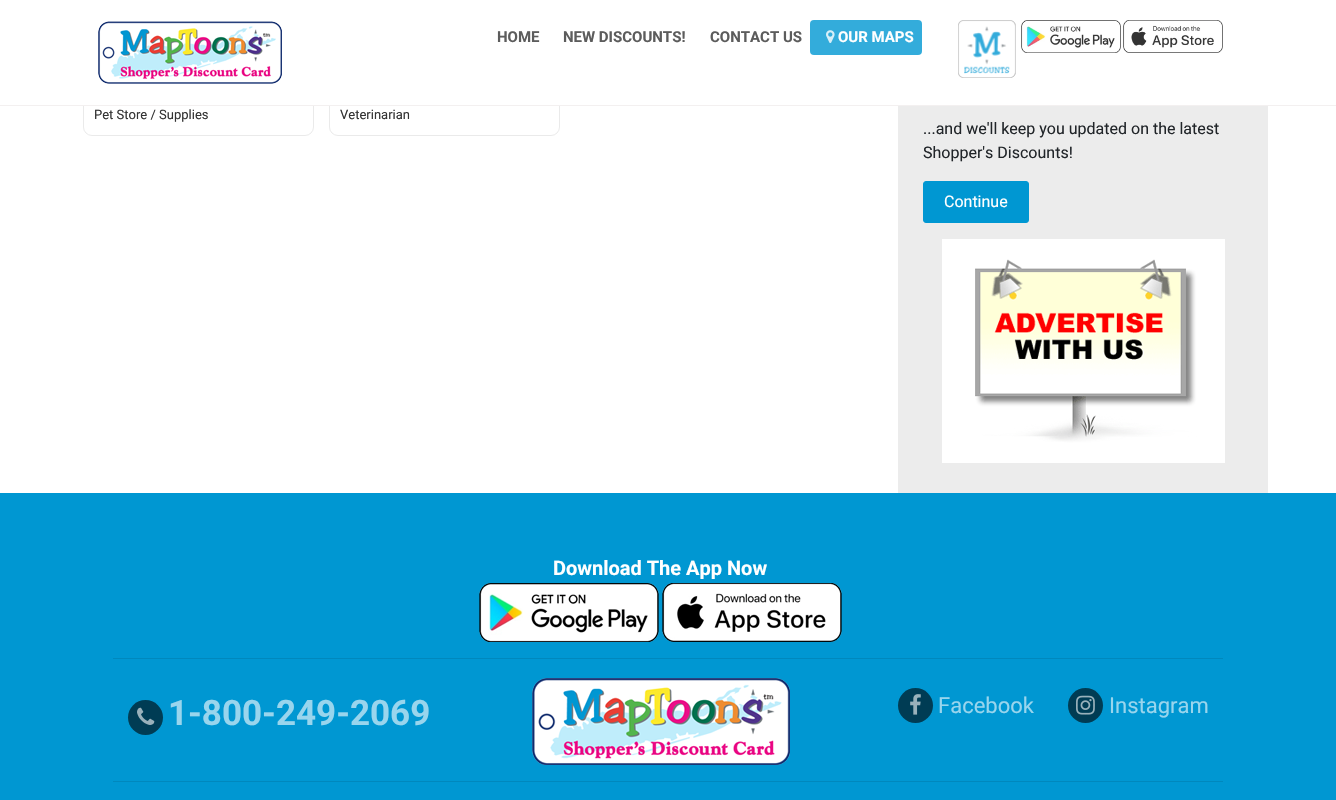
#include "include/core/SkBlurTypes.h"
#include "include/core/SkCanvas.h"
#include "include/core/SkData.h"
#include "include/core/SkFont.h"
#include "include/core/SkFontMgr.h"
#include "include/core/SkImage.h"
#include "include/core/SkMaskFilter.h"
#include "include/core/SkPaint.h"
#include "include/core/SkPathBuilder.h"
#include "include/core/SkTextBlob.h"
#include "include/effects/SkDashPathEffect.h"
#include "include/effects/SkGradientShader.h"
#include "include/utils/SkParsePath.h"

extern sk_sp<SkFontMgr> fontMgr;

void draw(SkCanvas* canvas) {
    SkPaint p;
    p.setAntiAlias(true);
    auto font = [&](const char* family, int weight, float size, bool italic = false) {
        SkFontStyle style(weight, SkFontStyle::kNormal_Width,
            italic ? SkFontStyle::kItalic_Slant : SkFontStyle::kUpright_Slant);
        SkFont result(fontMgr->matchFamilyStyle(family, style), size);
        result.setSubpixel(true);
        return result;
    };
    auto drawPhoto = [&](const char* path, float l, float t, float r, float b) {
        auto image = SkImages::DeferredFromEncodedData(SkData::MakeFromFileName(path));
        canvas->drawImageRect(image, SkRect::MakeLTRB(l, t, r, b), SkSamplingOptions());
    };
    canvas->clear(0xFFFFFFFF);
    p.setStyle(SkPaint::kStroke_Style);
    p.setStrokeWidth(1);
    p.setColor(0xFFEAEAEA);
    canvas->drawRoundRect(SkRect::MakeLTRB(83.5f, 94.5f, 313.5f, 135.5f), 8.5f, 8.5f, p);
    canvas->drawRoundRect(SkRect::MakeLTRB(329.5f, 94.5f, 559.5f, 135.5f), 8.5f, 8.5f, p);
    p.setStyle(SkPaint::kFill_Style);
    p.setColor(0xFFFFFFFF);
    canvas->drawRect(SkRect::MakeLTRB(83, 94, 560, 105), p);
    p.setColor(0xFFF3F0F0);
    canvas->drawRect(SkRect::MakeLTRB(0, 105, 1336, 106), p);
    drawPhoto("media/1.png", 98, 21, 282, 84);
    auto font1 = font("Roboto", 700, 15);
    p.setColor(0xFF5C5C5C);
    {
        const struct { const char* s; float x, y; } items[] = {
            {"HOME", 497, 42},
            {"NEW DISCOUNTS!", 563, 42},
            {"CONTACT US", 710, 42},
        };
        for (auto [s, x, y] : items) {
            canvas->drawString(s, x, y, font1, p);
        }
    }
    p.setColor(0xFF33ACDB);
    canvas->drawRoundRect(SkRect::MakeLTRB(810, 20, 922, 55), 4, 4, p);
    drawPhoto("media/2.png", 826, 30, 835, 43);
    p.setColor(0xFFFFFFFF);
    canvas->drawString("OUR MAPS", 838, 42, font1, p);
    drawPhoto("media/3.png", 958, 20, 1016, 78);
    drawPhoto("media/4.png", 1021, 20, 1121, 53);
    drawPhoto("media/5.png", 1123, 20, 1223, 53);
    auto font2 = font("Roboto", 400, 13);
    p.setColor(0xFF333333);
    canvas->drawString("Pet Store / Supplies", 94, 119, font2, p);
    canvas->drawString("Veterinarian", 340, 119, font2, p);
    p.setColor(0xFFECECEC);
    canvas->drawRect(SkRect::MakeLTRB(898, 106, 1268, 493), p);
    auto font3 = font("Roboto", 400, 16);
    p.setColor(0xFF212529);
    canvas->drawString("...and we'll keep you updated on the latest", 923, 134, font3, p);
    canvas->drawString("Shopper's Discounts!", 923, 158, font3, p);
    p.setColor(0xFF0097D2);
    canvas->drawRoundRect(SkRect::MakeLTRB(923.5f, 181.5f, 1028.5f, 222.5f), 2.5f, 2.5f, p);
    p.setStyle(SkPaint::kStroke_Style);
    canvas->drawRoundRect(SkRect::MakeLTRB(923.5f, 181.5f, 1028.5f, 222.5f), 2.5f, 2.5f, p);
    p.setStyle(SkPaint::kFill_Style);
    p.setColor(0xFFFFFFFF);
    canvas->drawString("Continue", 944, 207, font3, p);
    drawPhoto("media/6.png", 942, 239, 1225, 463);
    p.setColor(0xFF0097D2);
    canvas->drawRect(SkRect::MakeLTRB(0, 493, 1336, 800), p);
    auto font4 = font("Roboto", 700, 20);
    p.setColor(0xFFFFFFFF);
    canvas->drawString("Download The App Now", 553, 575, font4, p);
    drawPhoto("media/7.png", 479, 583, 659, 642);
    drawPhoto("media/8.png", 662, 583, 842, 642);
    p.setColor(0xFF0088BD);
    canvas->drawRect(SkRect::MakeLTRB(113, 658, 1223, 659), p);
    p.setColor(0xFF003C54);
    canvas->drawCircle(145.5f, 717.5f, 17.5f, p);
    drawPhoto("media/9.png", 137, 707, 155, 725);
    auto font5 = font("Roboto", 700, 35);
    p.setColor(0xFF99D5ED);
    canvas->drawString("1-800-249-2069", 168, 725, font5, p);
    drawPhoto("media/10.png", 532, 678, 790, 765);
    p.setColor(0xFF003C54);
    canvas->drawCircle(915.5f, 705.5f, 17.5f, p);
    drawPhoto("media/11.png", 910, 694, 921, 715);
    auto font6 = font("Roboto", 400, 22);
    p.setColor(0xFF99D5ED);
    canvas->drawString("Facebook", 938, 713, font6, p);
    p.setColor(0xFF003C54);
    canvas->drawCircle(1085.5f, 705.5f, 17.5f, p);
    drawPhoto("media/12.png", 1076, 695, 1095, 715);
    p.setColor(0xFF99D5ED);
    canvas->drawString("Instagram", 1109, 713, font6, p);
    p.setColor(0xFF0088BD);
    canvas->drawRect(SkRect::MakeLTRB(113, 781, 1223, 782), p);
}
